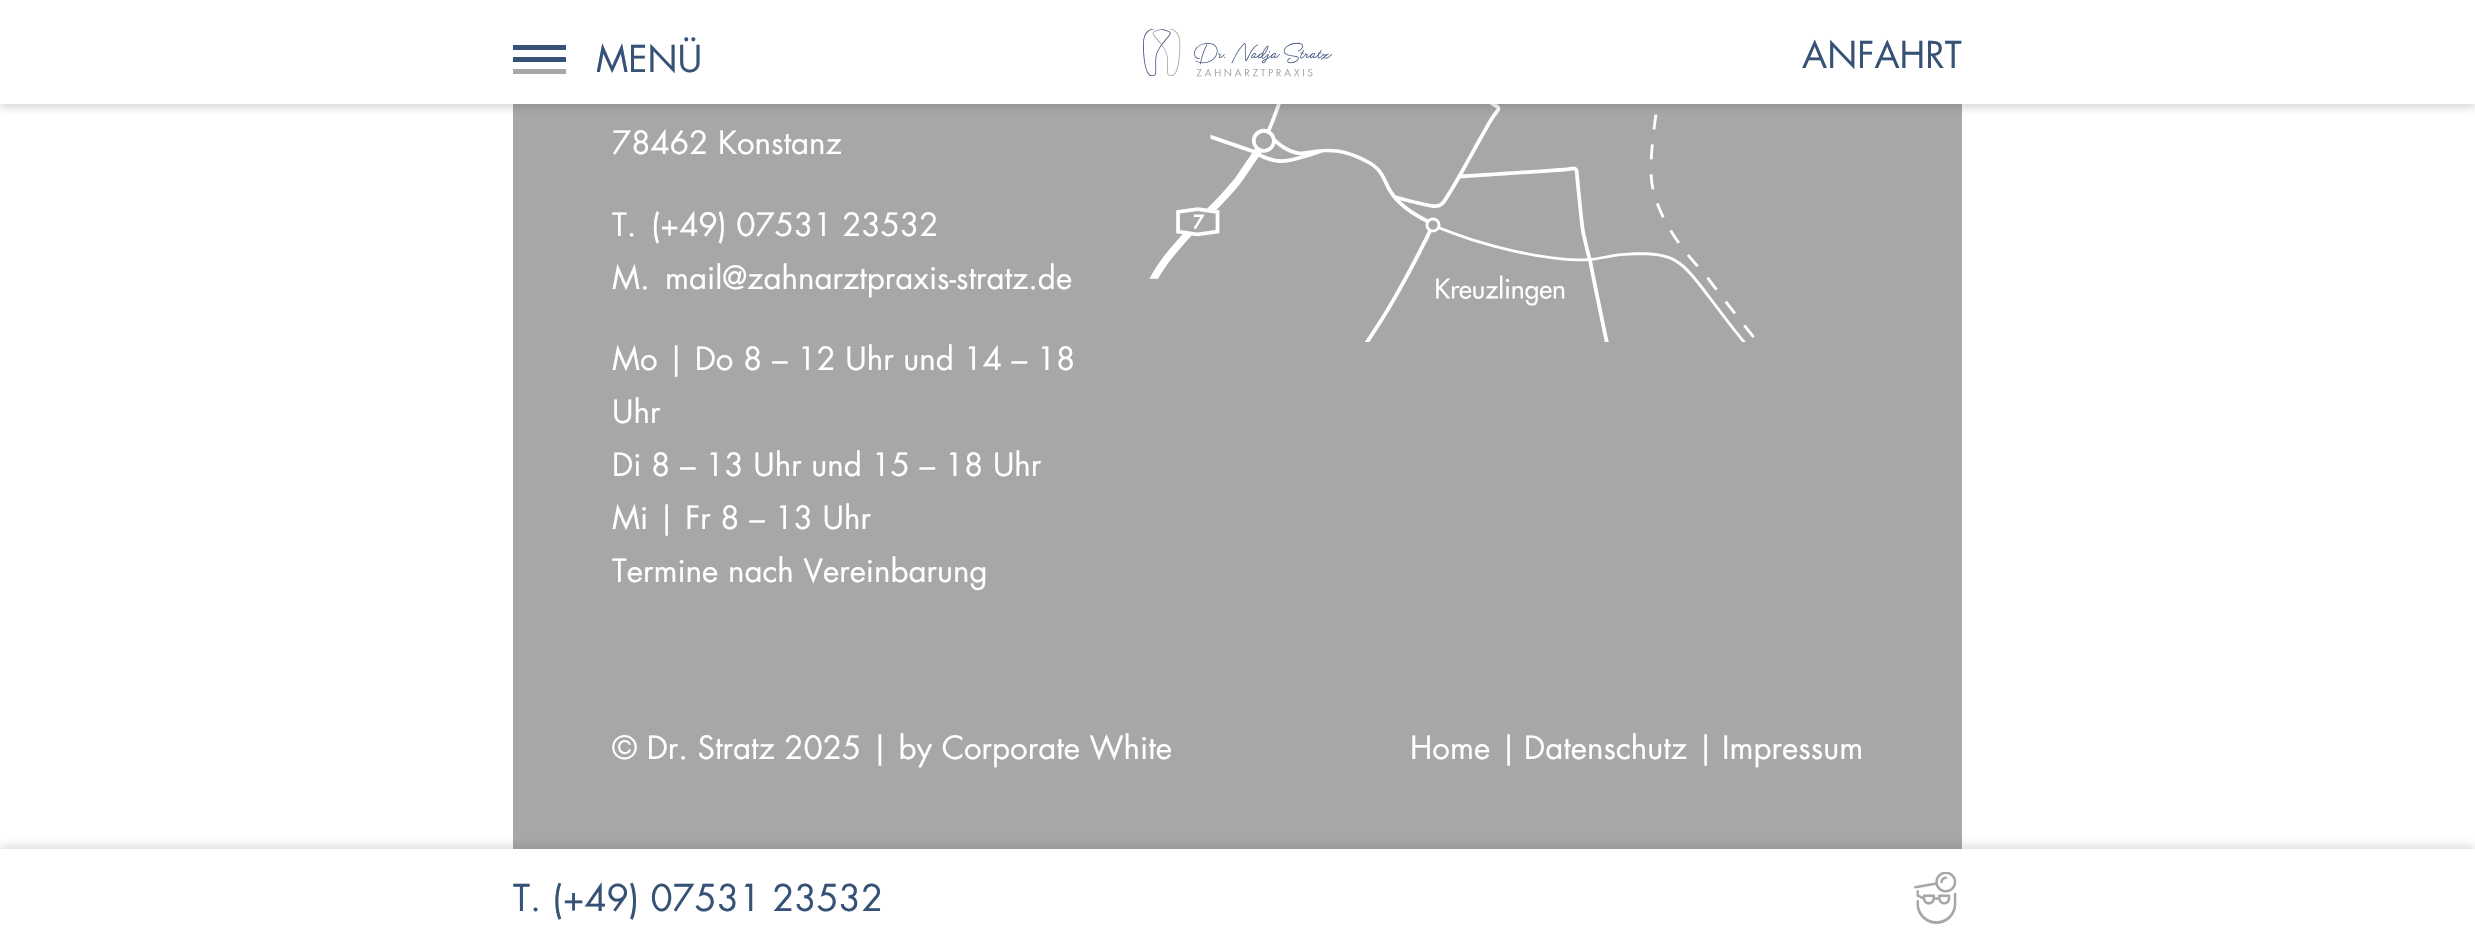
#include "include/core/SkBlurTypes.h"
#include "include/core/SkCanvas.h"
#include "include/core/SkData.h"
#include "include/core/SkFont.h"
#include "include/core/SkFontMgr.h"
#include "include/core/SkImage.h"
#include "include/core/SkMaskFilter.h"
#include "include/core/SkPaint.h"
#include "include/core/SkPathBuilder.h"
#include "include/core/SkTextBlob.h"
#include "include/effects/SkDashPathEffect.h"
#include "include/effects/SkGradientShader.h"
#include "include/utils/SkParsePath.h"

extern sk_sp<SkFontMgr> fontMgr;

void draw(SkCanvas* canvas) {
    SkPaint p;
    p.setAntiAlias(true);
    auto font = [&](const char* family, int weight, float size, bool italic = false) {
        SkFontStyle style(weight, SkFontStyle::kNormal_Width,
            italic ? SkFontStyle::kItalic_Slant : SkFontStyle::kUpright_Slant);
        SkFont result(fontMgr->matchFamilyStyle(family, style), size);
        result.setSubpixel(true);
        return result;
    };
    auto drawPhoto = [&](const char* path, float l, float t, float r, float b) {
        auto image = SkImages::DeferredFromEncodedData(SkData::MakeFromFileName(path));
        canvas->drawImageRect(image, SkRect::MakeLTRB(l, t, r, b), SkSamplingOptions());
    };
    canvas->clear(0xFFFFFFFF);
    p.setColor(0xFFA8A7A5);
    canvas->drawRect(SkRect::MakeLTRB(513, 104, 1962, 849), p);
    drawPhoto("media/2.png", 1149, 104, 1755, 342);
    p.setColor(0x33393F48);
    p.setMaskFilter(SkMaskFilter::MakeBlur(kNormal_SkBlurStyle, 4));
    canvas->drawRect(SkRect::MakeLTRB(0, 5, 2475, 108), p);
    p.setMaskFilter(nullptr);
    {
        const struct { float l, t, r, b; SkColor color; } items[] = {
            {0, 0, 2475, 104, 0xFFFFFFFF},
            {513, 57, 566, 62, 0xFF375277},
            {513, 45, 566, 50, 0xFF375277},
            {513, 69, 566, 74, 0xFFA8A7A5},
        };
        for (auto [l, t, r, b, color] : items) {
            p.setColor(color);
            canvas->drawRect(SkRect::MakeLTRB(l, t, r, b), p);
        }
    }
    auto font1 = font("Futura", 400, 36);
    p.setColor(0xFF375277);
    canvas->drawString("MENÜ", 596, 72, font1, p);
    drawPhoto("media/1.png", 1143, 29, 1332, 77);
    canvas->drawString("ANFAHRT", 1802, 68, font1, p);
    auto font2 = font("Futura", 400, 31.25f);
    p.setColor(0xFFFFFFFF);
    {
        const struct { const char* s; float x, y; } items[] = {
            {"78462 Konstanz", 612, 154},
            {"T.", 612, 236},
            {"(+49) 07531 23532", 651, 236},
            {"M.", 612, 289},
            {"mail@zahnarztpraxis-stratz.de", 665, 289},
            {"Mo | Do 8 – 12 Uhr und 14 – 18", 612, 370},
            {"Uhr", 612, 423},
            {"Di 8 – 13 Uhr und 15 – 18 Uhr", 612, 476},
            {"Mi | Fr 8 – 13 Uhr", 612, 529},
            {"Termine nach Vereinbarung", 612, 582},
            {"© Dr. Stratz 2025 | by Corporate White", 612, 759},
            {"Home |", 1410, 759},
            {"Datenschutz |", 1524, 759},
            {"Impressum", 1722, 759},
        };
        for (auto [s, x, y] : items) {
            canvas->drawString(s, x, y, font2, p);
        }
    }
    p.setColor(0x26393F48);
    p.setMaskFilter(SkMaskFilter::MakeBlur(kNormal_SkBlurStyle, 4));
    canvas->drawRect(SkRect::MakeLTRB(0, 845, 2475, 944), p);
    p.setMaskFilter(nullptr);
    p.setColor(0xFFFFFFFF);
    canvas->drawRect(SkRect::MakeLTRB(0, 849, 2475, 947), p);
    p.setColor(0xFF375277);
    canvas->drawString("T. (+49) 07531 23532", 513, 911, font1, p);
    drawPhoto("media/3.png", 1914, 872, 1957, 924);
}
